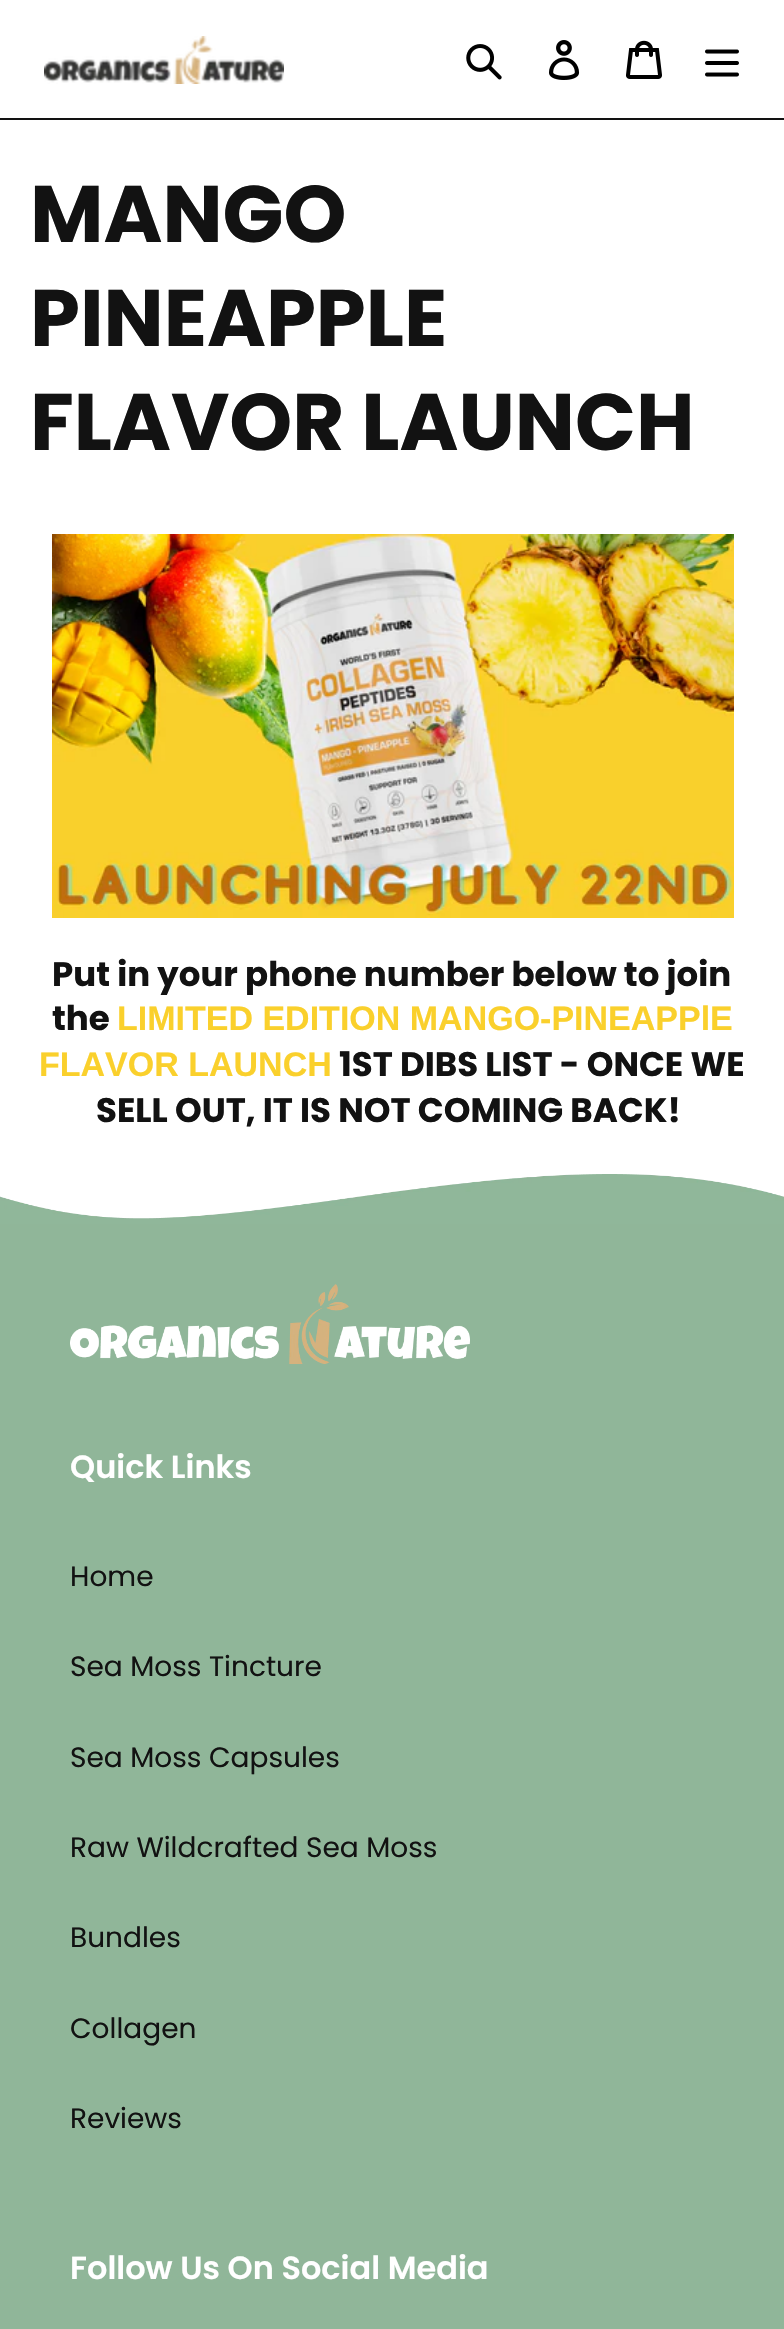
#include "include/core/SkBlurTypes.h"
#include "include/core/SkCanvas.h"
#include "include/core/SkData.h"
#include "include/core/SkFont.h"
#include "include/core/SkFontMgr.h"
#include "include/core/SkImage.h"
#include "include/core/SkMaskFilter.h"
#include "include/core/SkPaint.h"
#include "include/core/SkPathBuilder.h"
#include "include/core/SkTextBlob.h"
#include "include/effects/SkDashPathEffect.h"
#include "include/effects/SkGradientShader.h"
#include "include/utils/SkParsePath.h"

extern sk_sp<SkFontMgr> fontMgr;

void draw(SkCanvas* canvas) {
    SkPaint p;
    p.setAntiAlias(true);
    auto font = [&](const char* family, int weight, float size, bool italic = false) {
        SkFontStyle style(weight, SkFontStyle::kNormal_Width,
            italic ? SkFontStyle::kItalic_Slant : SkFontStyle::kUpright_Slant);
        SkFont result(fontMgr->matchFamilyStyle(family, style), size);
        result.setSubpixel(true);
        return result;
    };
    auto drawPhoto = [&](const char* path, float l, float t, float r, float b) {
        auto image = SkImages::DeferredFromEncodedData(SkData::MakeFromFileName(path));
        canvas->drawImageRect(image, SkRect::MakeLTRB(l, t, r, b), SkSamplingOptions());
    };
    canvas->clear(0xFFFFFFFF);
    p.setColor(0xFF121212);
    canvas->drawRect(SkRect::MakeLTRB(0, 118, 784, 120), p);
    drawPhoto("media/1.png", 44, 36, 284, 84);
    drawPhoto("media/2.png", 466, 44, 502, 80);
    drawPhoto("media/3.png", 549, 40, 580, 80);
    drawPhoto("media/4.png", 626, 40, 662, 79);
    drawPhoto("media/5.png", 705, 49, 739, 77);
    auto font1 = font("Poppins", 700, 80);
    {
        const struct { const char* s; float x, y; } items[] = {
            {"MANGO", 30, 242},
            {"PINEAPPLE", 30, 346},
            {"FLAVOR LAUNCH", 30, 450},
        };
        for (auto [s, x, y] : items) {
            canvas->drawString(s, x, y, font1, p);
        }
    }
    drawPhoto("media/6.png", 52, 534, 734, 918);
    auto font2 = font("Poppins", 700, 34);
    canvas->drawString("Put in your phone number below to join", 52, 986, font2, p);
    canvas->drawString("the", 52, 1030, font2, p);
    auto font3 = font("Liberation Sans", 700, 34);
    p.setColor(0xFFFAD02C);
    canvas->drawString("LIMITED EDITION MANGO-PINEAPPlE", 117, 1030, font3, p);
    canvas->drawString("FLAVOR LAUNCH", 39, 1076, font3, p);
    p.setColor(0xFF121212);
    canvas->drawString("1ST DIBS LIST - ONCE WE", 339, 1076, font2, p);
    canvas->drawString("SELL OUT, IT IS NOT COMING BACK!", 96, 1122, font2, p);
    drawPhoto("media/7.png", 0, 1174, 784, 1224);
    p.setColor(0xFF90B699);
    canvas->drawRect(SkRect::MakeLTRB(0, 1224, 784, 2329), p);
    drawPhoto("media/8.png", 70, 1284, 470, 1364);
    auto font4 = font("Poppins", 600, 32);
    p.setColor(0xFFFFFFFF);
    canvas->drawString("Quick Links", 70, 1478, font4, p);
    auto font5 = font("Poppins", 400, 28);
    p.setColor(0xFF121212);
    {
        const struct { const char* s; float x, y; } items[] = {
            {"Home", 70, 1586},
            {"Sea Moss Tincture", 70, 1676},
            {"Sea Moss Capsules", 70, 1767},
            {"Raw Wildcrafted Sea Moss", 70, 1857},
            {"Bundles", 70, 1947},
            {"Collagen", 70, 2038},
            {"Reviews", 70, 2128},
        };
        for (auto [s, x, y] : items) {
            canvas->drawString(s, x, y, font5, p);
        }
    }
    p.setColor(0xFFFFFFFF);
    canvas->drawString("Follow Us On Social Media", 70, 2279, font4, p);
}
